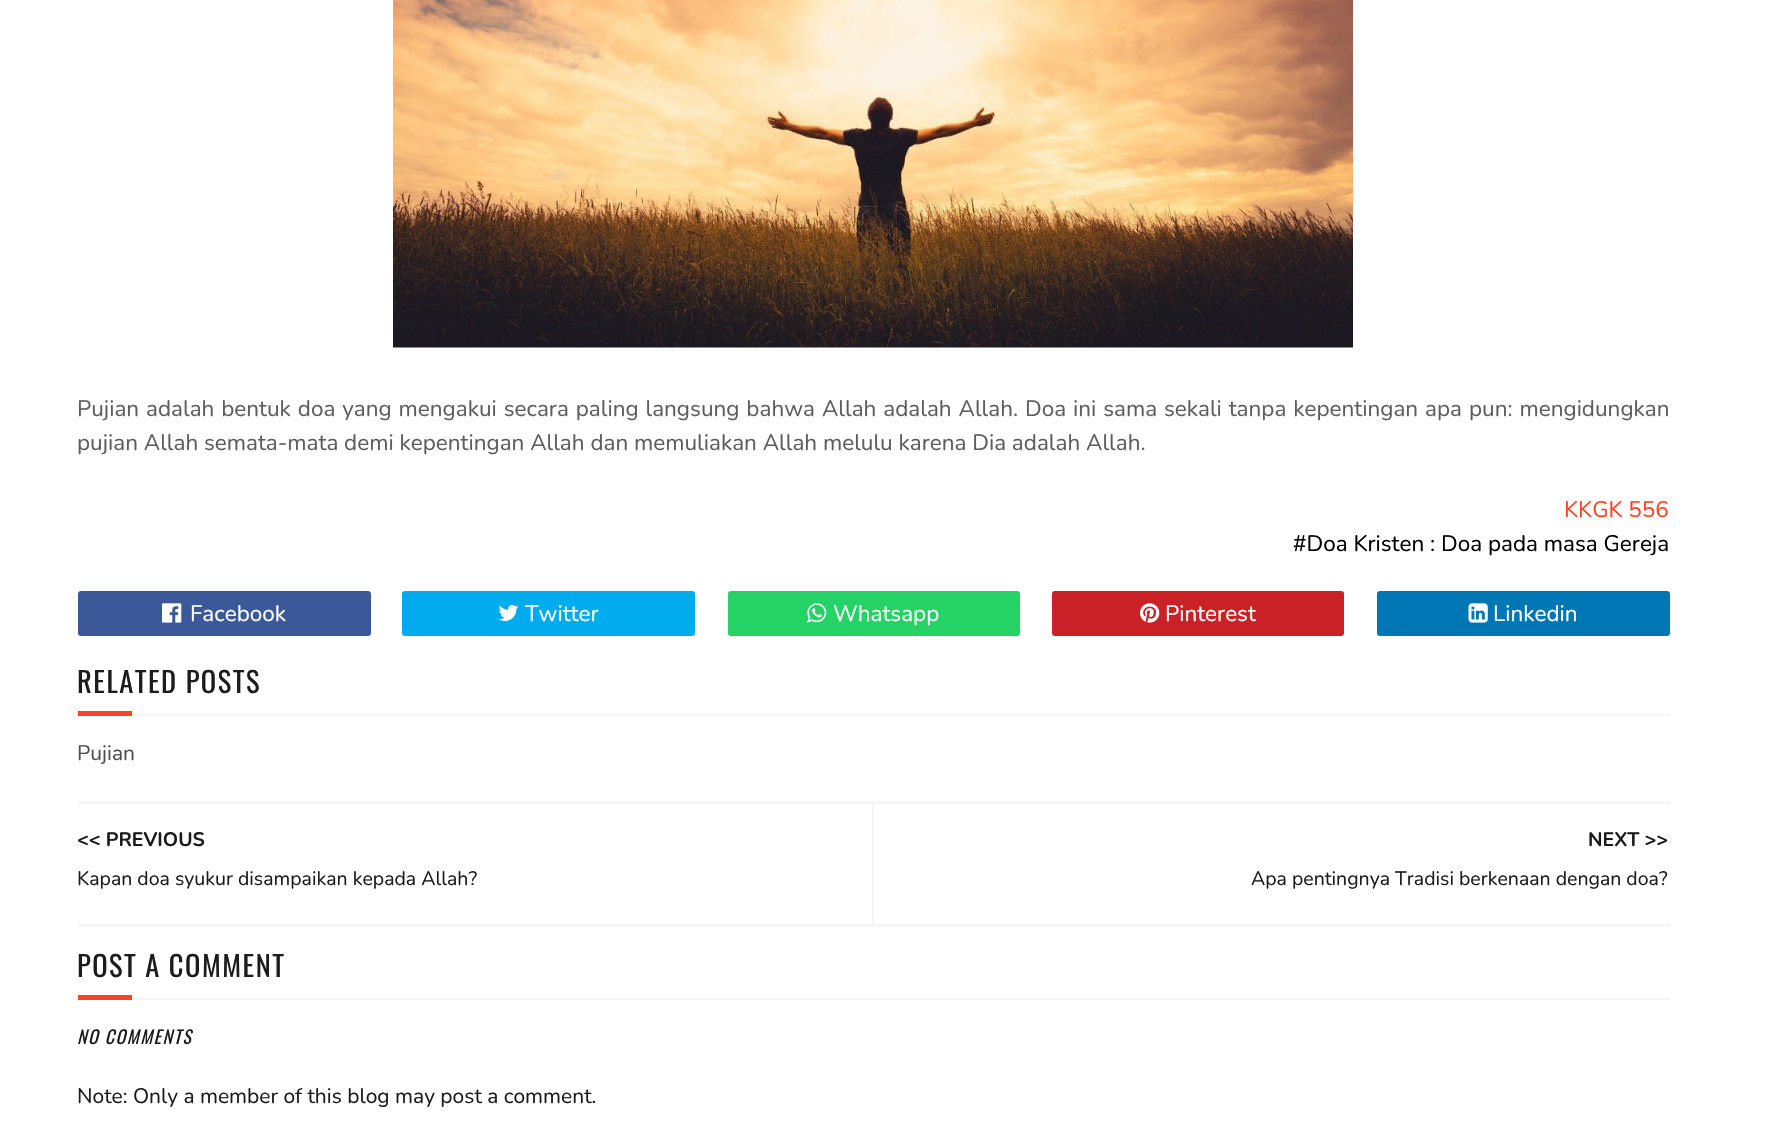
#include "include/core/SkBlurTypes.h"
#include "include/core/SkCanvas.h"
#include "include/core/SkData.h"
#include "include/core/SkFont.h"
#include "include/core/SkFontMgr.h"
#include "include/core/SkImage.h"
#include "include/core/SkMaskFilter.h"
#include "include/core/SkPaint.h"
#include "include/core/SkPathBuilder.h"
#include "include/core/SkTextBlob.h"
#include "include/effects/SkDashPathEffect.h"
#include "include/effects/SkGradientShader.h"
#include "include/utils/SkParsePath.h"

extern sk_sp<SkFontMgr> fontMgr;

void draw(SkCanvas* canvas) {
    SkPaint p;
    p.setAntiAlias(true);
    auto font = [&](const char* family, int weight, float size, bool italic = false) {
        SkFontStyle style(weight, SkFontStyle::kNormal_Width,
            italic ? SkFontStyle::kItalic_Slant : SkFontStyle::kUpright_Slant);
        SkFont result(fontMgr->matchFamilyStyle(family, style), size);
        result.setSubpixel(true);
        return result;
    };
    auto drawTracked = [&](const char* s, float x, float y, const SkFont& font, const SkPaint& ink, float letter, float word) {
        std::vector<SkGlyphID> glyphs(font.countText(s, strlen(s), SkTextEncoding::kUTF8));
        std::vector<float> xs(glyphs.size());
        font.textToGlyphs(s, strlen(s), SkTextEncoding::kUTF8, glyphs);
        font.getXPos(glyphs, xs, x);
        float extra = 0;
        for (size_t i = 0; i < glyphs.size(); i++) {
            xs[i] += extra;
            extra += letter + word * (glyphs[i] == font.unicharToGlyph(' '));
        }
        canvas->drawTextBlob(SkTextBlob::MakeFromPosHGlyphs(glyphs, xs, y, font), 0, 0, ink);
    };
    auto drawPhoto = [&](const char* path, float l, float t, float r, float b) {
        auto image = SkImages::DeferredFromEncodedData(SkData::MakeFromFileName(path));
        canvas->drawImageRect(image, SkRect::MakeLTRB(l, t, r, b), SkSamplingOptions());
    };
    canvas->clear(0xFFFFFFFF);
    drawPhoto("media/1.png", 393, 0, 1353, 348);
    auto font1 = font("Nunito", 400, 22.5f);
    p.setColor(0xFF5E5E5E);
    drawTracked("Pujian adalah bentuk doa yang mengakui secara paling langsung bahwa Allah adalah Allah. Doa ini sama sekali tanpa kepentingan apa pun: mengidungkan", 77, 416, font1, p, 0, 1.1f);
    canvas->drawString("pujian Allah semata-mata demi kepentingan Allah dan memuliakan Allah melulu karena Dia adalah Allah.", 77, 450, font1, p);
    p.setColor(0xFFFD4326);
    canvas->drawString("KKGK 556", 1564, 517, font1, p);
    p.setColor(0xFF000000);
    canvas->drawString("#Doa Kristen : Doa pada masa Gereja", 1293, 551, font1, p);
    p.setColor(0xFF3B5998);
    canvas->drawRoundRect(SkRect::MakeLTRB(78, 591, 371, 636), 3, 3, p);
    drawPhoto("media/2.png", 162, 603, 182, 623);
    p.setColor(0xFFFFFFFF);
    canvas->drawString("Facebook", 190, 621, font1, p);
    p.setColor(0xFF00ACEE);
    canvas->drawRoundRect(SkRect::MakeLTRB(402, 591, 695, 636), 3, 3, p);
    drawPhoto("media/3.png", 498, 604, 519, 621);
    p.setColor(0xFFFFFFFF);
    canvas->drawString("Twitter", 525, 621, font1, p);
    p.setColor(0xFF25D266);
    canvas->drawRoundRect(SkRect::MakeLTRB(728, 591, 1020, 636), 3, 3, p);
    drawPhoto("media/4.png", 807, 603, 827, 623);
    p.setColor(0xFFFFFFFF);
    canvas->drawString("Whatsapp", 833, 621, font1, p);
    p.setColor(0xFFCA2127);
    canvas->drawRoundRect(SkRect::MakeLTRB(1052, 591, 1344, 636), 3, 3, p);
    drawPhoto("media/5.png", 1140, 603, 1160, 623);
    p.setColor(0xFFFFFFFF);
    canvas->drawString("Pinterest", 1165, 621, font1, p);
    p.setColor(0xFF0077B5);
    canvas->drawRoundRect(SkRect::MakeLTRB(1377, 591, 1670, 636), 3, 3, p);
    drawPhoto("media/6.png", 1468, 603, 1488, 623);
    p.setColor(0xFFFFFFFF);
    canvas->drawString("Linkedin", 1493, 621, font1, p);
    p.setColor(0xFFF5F5F5);
    canvas->drawRect(SkRect::MakeLTRB(132, 714, 1670, 716), p);
    auto font2 = font("Oswald", 400, 28.5f);
    p.setColor(0xFF1C1C1C);
    drawTracked("RELATED POSTS", 77, 693, font2, p, 1.5f, 0);
    p.setColor(0xFFFD4326);
    canvas->drawRect(SkRect::MakeLTRB(78, 711, 132, 716), p);
    auto font3 = font("Nunito", 400, 21);
    p.setColor(0xFF4F4F4F);
    canvas->drawString("Pujian", 77, 760, font3, p);
    {
        const struct { float l, t, r, b; SkColor color; } items[] = {
            {78, 801, 1670, 804, 0xFFF5F5F5},
            {78, 924, 1670, 927, 0xFFF5F5F5},
            {872, 804, 874, 924, 0xFFF5F5F5},
        };
        for (auto [l, t, r, b, color] : items) {
            p.setColor(color);
            canvas->drawRect(SkRect::MakeLTRB(l, t, r, b), p);
        }
    }
    auto font4 = font("Nunito", 700, 19.5f);
    p.setColor(0xFF1C1C1C);
    canvas->drawString("<< PREVIOUS", 77, 846, font4, p);
    auto font5 = font("Nunito", 400, 19.5f);
    canvas->drawString("Kapan doa syukur disampaikan kepada Allah?", 77, 885, font5, p);
    canvas->drawString("NEXT >>", 1588, 846, font4, p);
    canvas->drawString("Apa pentingnya Tradisi berkenaan dengan doa?", 1251, 885, font5, p);
    p.setColor(0xFFF5F5F5);
    canvas->drawRect(SkRect::MakeLTRB(132, 998, 1670, 1000), p);
    p.setColor(0xFF1C1C1C);
    drawTracked("POST A COMMENT", 77, 977, font2, p, 1.5f, 0);
    p.setColor(0xFFFD4326);
    canvas->drawRect(SkRect::MakeLTRB(78, 995, 132, 1000), p);
    auto font6 = font("Oswald", 400, 18, true);
    p.setColor(0xFF1C1C1C);
    drawTracked("NO COMMENTS", 77, 1044, font6, p, 1.5f, 0);
    canvas->drawString("Note: Only a member of this blog may post a comment.", 77, 1103, font3, p);
}
